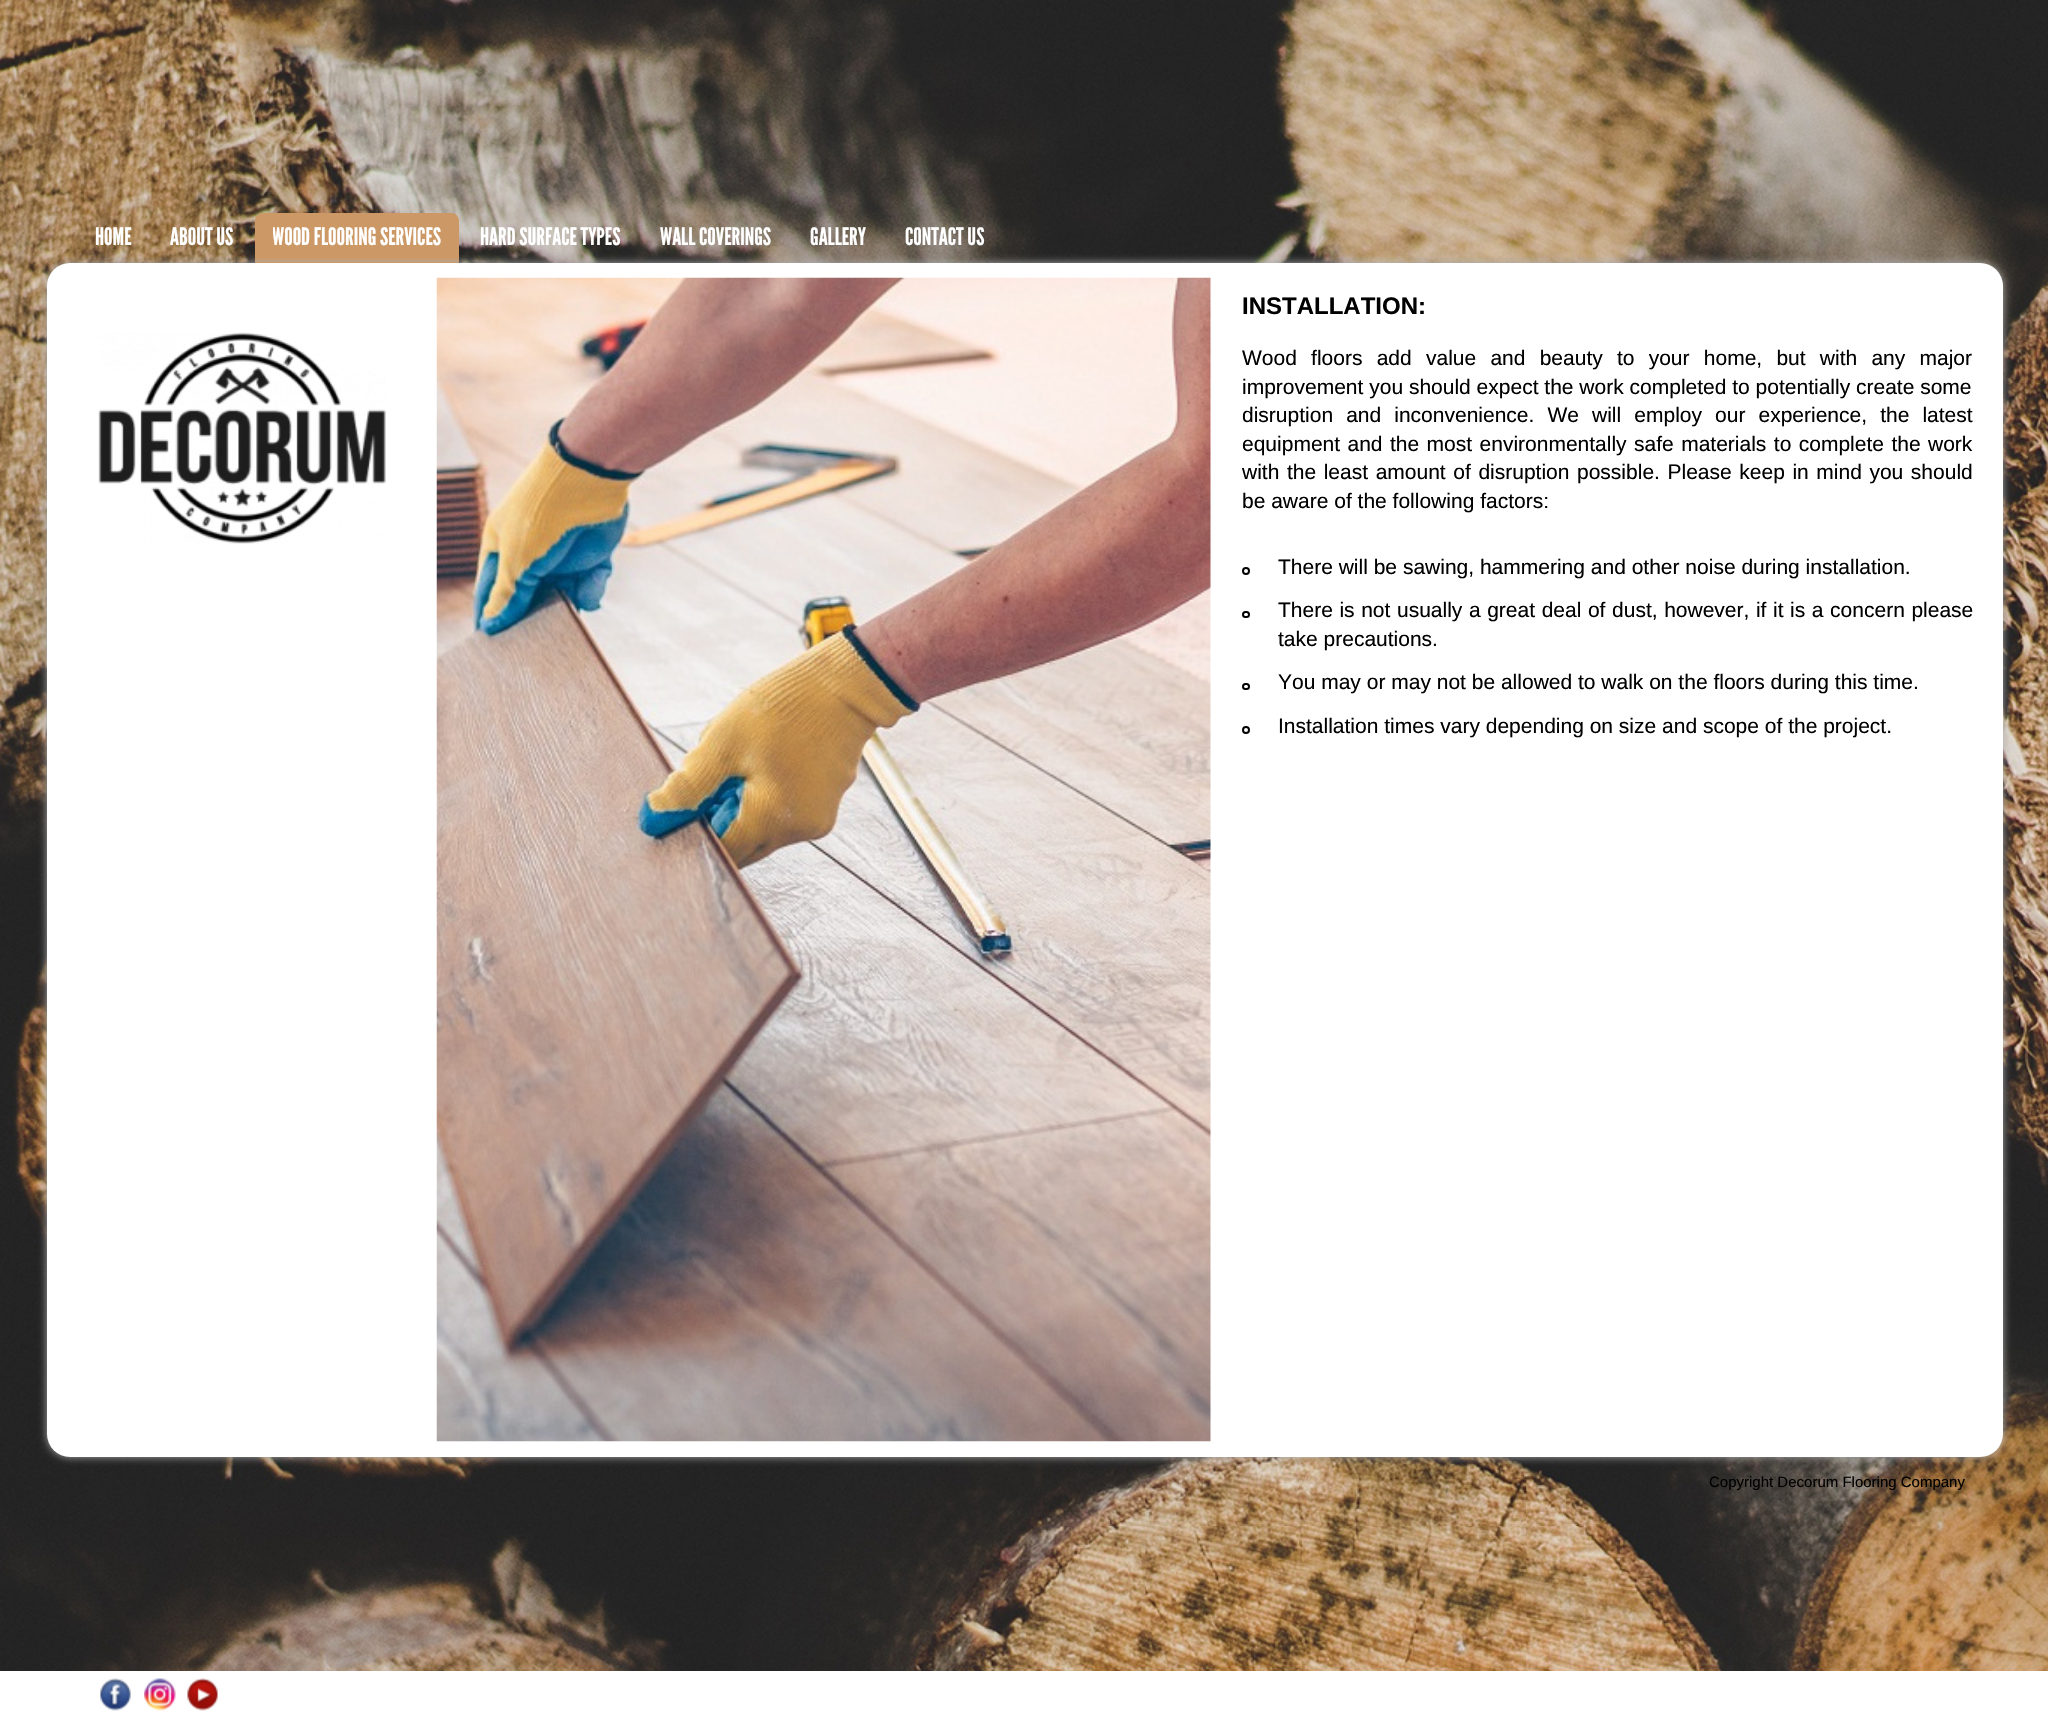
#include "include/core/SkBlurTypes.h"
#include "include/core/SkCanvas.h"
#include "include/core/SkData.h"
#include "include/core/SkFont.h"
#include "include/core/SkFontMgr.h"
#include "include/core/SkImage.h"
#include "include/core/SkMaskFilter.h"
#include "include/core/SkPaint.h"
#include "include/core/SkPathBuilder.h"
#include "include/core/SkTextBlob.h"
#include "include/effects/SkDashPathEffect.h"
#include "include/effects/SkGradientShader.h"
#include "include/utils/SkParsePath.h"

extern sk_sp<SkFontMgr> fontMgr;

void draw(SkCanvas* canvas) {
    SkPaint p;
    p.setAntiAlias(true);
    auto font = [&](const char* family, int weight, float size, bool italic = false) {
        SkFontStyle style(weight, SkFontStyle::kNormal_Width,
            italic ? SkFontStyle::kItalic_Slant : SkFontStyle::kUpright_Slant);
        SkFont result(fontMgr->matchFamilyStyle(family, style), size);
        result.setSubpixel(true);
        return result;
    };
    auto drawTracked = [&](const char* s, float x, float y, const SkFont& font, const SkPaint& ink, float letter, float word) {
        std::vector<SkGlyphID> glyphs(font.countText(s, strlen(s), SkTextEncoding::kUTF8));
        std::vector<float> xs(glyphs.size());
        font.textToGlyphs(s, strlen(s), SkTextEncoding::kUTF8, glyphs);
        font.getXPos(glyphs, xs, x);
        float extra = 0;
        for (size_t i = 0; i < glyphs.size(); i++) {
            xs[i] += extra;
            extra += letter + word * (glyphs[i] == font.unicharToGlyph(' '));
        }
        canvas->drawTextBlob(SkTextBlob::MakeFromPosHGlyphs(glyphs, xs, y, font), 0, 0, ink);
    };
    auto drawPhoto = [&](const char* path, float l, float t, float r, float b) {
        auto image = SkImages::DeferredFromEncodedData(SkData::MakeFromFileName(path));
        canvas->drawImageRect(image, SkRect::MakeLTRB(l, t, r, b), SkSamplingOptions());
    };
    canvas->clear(0xFFFFFFFF);
    drawPhoto("media/1.png", 0, 0, 2048, 1671);
    p.setColor(0xFFAAAAAA);
    p.setMaskFilter(SkMaskFilter::MakeBlur(kNormal_SkBlurStyle, 4.5f));
    canvas->drawRoundRect(SkRect::MakeLTRB(47, 263, 2003, 1457), 23, 23, p);
    p.setMaskFilter(nullptr);
    p.setColor(0xFFFFFFFF);
    canvas->drawRoundRect(SkRect::MakeLTRB(47, 263, 2003, 1457), 23, 23, p);
    auto font1 = font("League Gothic", 400, 24);
    canvas->drawString("HOME", 95, 245, font1, p);
    canvas->drawString("ABOUT US", 170, 245, font1, p);
    p.setColor(0xFFCC9966);
    canvas->drawPath(SkPathBuilder().moveTo(263, 213).lineTo(451, 213).cubicTo(455.5f, 213, 459, 216.5f, 459, 221).lineTo(459, 263).lineTo(255, 263).lineTo(255, 221).cubicTo(255, 216.5f, 258.5f, 213, 263, 213).close().detach(), p);
    drawPhoto("media/2.png", 255, 258, 459, 263);
    canvas->save();
    canvas->clipRect(SkRect::MakeLTRB(273, 225, 441, 249));
    p.setColor(0xFFFFFFFF);
    canvas->drawString("WOOD FLOORING SERVICES", 272, 245, font1, p);
    canvas->restore();
    {
        const struct { const char* s; float x, y; } items[] = {
            {"HARD SURFACE TYPES", 480, 245},
            {"WALL COVERINGS", 660, 245},
            {"GALLERY", 810, 245},
            {"CONTACT US", 905, 245},
        };
        for (auto [s, x, y] : items) {
            canvas->drawString(s, x, y, font1, p);
        }
    }
    drawPhoto("media/3.png", 98, 332, 386, 544);
    drawPhoto("media/4.png", 436, 277, 1211, 1442);
    auto font2 = font("Liberation Sans", 700, 24);
    p.setColor(0xFF000000);
    canvas->drawString("INSTALLATION:", 1242, 314, font2, p);
    auto font3 = font("Liberation Sans", 400, 21);
    drawTracked("Wood floors add value and beauty to your home, but with any major", 1242, 365, font3, p, 0, 8.4f);
    canvas->drawString("improvement you should expect the work completed to potentially create some", 1242, 394, font3, p);
    drawTracked("disruption and inconvenience. We will employ our experience, the latest", 1242, 422, font3, p, 0, 7.25f);
    drawTracked("equipment and the most environmentally safe materials to complete the work", 1242, 451, font3, p, 0, 1.6f);
    drawTracked("with the least amount of disruption possible. Please keep in mind you should", 1242, 479, font3, p, 0, 1.75f);
    canvas->drawString("be aware of the following factors:", 1242, 508, font3, p);
    p.setStyle(SkPaint::kStroke_Style);
    p.setStrokeWidth(2);
    canvas->drawCircle(1246, 571, 3, p);
    p.setStyle(SkPaint::kFill_Style);
    canvas->drawString("There will be sawing, hammering and other noise during installation.", 1278, 574, font3, p);
    p.setStyle(SkPaint::kStroke_Style);
    canvas->drawRoundRect(SkRect::MakeLTRB(1243, 612, 1249, 617), 2.5f, 2.5f, p);
    p.setStyle(SkPaint::kFill_Style);
    drawTracked("There is not usually a great deal of dust, however, if it is a concern please", 1278, 617, font3, p, 0, 0.75f);
    canvas->drawString("take precautions.", 1278, 646, font3, p);
    p.setStyle(SkPaint::kStroke_Style);
    canvas->drawRoundRect(SkRect::MakeLTRB(1243, 684, 1249, 689), 2.5f, 2.5f, p);
    p.setStyle(SkPaint::kFill_Style);
    canvas->drawString("You may or may not be allowed to walk on the floors during this time.", 1278, 689, font3, p);
    p.setStyle(SkPaint::kStroke_Style);
    canvas->drawCircle(1246, 730, 3, p);
    p.setStyle(SkPaint::kFill_Style);
    canvas->drawString("Installation times vary depending on size and scope of the project.", 1278, 733, font3, p);
    auto font4 = font("Liberation Sans", 400, 15);
    canvas->drawString("Copyright Decorum Flooring Company", 1709, 1487, font4, p);
    drawPhoto("media/5.png", 100, 1678, 131, 1711);
    drawPhoto("media/6.png", 144, 1678, 176, 1711);
    drawPhoto("media/7.png", 187, 1678, 218, 1711);
}
